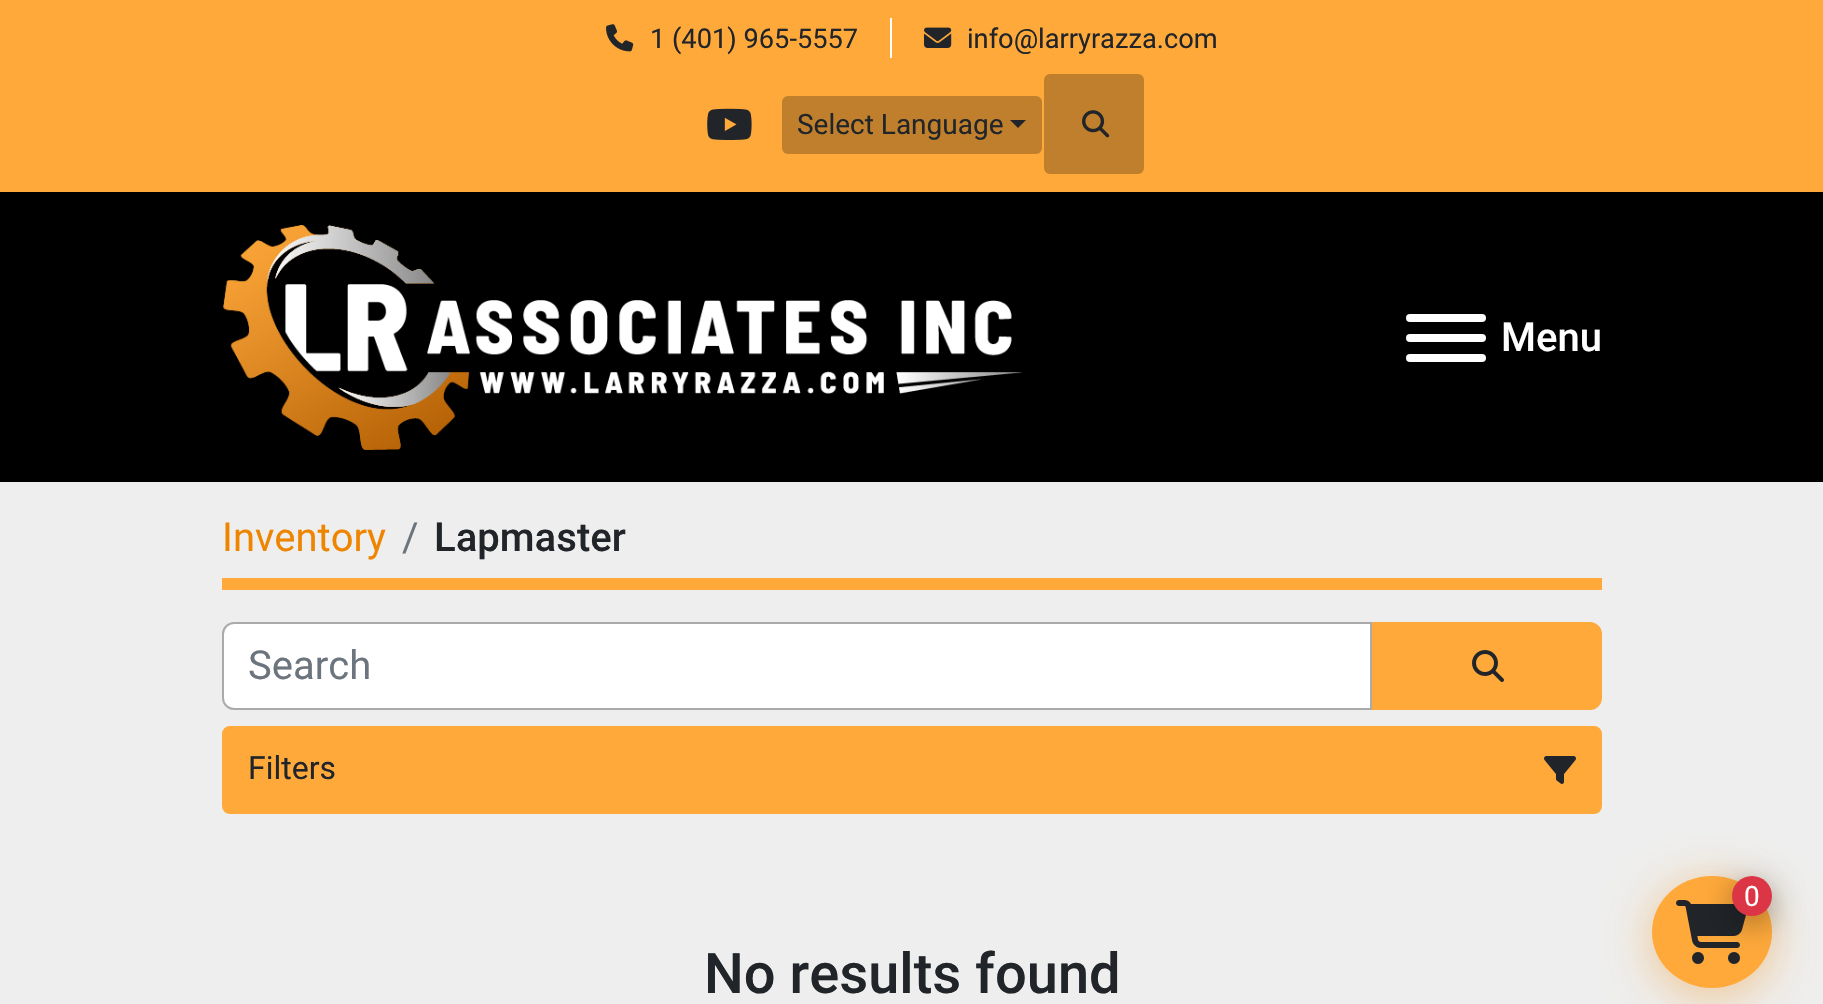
#include "include/core/SkBlurTypes.h"
#include "include/core/SkCanvas.h"
#include "include/core/SkData.h"
#include "include/core/SkFont.h"
#include "include/core/SkFontMgr.h"
#include "include/core/SkImage.h"
#include "include/core/SkMaskFilter.h"
#include "include/core/SkPaint.h"
#include "include/core/SkPathBuilder.h"
#include "include/core/SkTextBlob.h"
#include "include/effects/SkDashPathEffect.h"
#include "include/effects/SkGradientShader.h"
#include "include/utils/SkParsePath.h"

extern sk_sp<SkFontMgr> fontMgr;

void draw(SkCanvas* canvas) {
    SkPaint p;
    p.setAntiAlias(true);
    auto font = [&](const char* family, int weight, float size, bool italic = false) {
        SkFontStyle style(weight, SkFontStyle::kNormal_Width,
            italic ? SkFontStyle::kItalic_Slant : SkFontStyle::kUpright_Slant);
        SkFont result(fontMgr->matchFamilyStyle(family, style), size);
        result.setSubpixel(true);
        return result;
    };
    auto drawPhoto = [&](const char* path, float l, float t, float r, float b) {
        auto image = SkImages::DeferredFromEncodedData(SkData::MakeFromFileName(path));
        canvas->drawImageRect(image, SkRect::MakeLTRB(l, t, r, b), SkSamplingOptions());
    };
    canvas->clear(0xFFEEEEEE);
    p.setColor(0xFFFFA93B);
    canvas->drawRect(SkRect::MakeLTRB(0, 0, 1823, 192), p);
    p.setColor(0xFFFFFFFF);
    canvas->drawRect(SkRect::MakeLTRB(890, 18, 892, 58), p);
    drawPhoto("media/1.png", 606, 24, 634, 52);
    auto font1 = font("Roboto", 400, 27.25f);
    p.setColor(0xFF212529);
    canvas->drawString("1 (401) 965-5557", 650, 48, font1, p);
    drawPhoto("media/2.png", 924, 27, 952, 48);
    canvas->drawString("info@larryrazza.com", 967, 48, font1, p);
    drawPhoto("media/3.png", 707, 108, 752, 140);
    p.setColor(0xFFBF7F2C);
    canvas->drawRoundRect(SkRect::MakeLTRB(782, 96, 1042, 154), 6, 6, p);
    auto font2 = font("Roboto", 400, 28);
    p.setColor(0xFF212529);
    canvas->drawString("Select Language", 797, 134, font2, p);
    canvas->drawPath(SkPathBuilder().moveTo(1010, 120).lineTo(1026, 120).lineTo(1018, 128).close().detach(), p);
    p.setColor(0xFFBF7F2C);
    canvas->drawRoundRect(SkRect::MakeLTRB(1044, 74, 1144, 174), 6, 6, p);
    drawPhoto("media/4.png", 1082, 110, 1110, 138);
    p.setColor(0xFF000000);
    canvas->drawRect(SkRect::MakeLTRB(0, 192, 1823, 482), p);
    drawPhoto("media/5.png", 223, 225, 1022, 450);
    p.setColor(0xFFFFFFFF);
    canvas->drawRoundRect(SkRect::MakeLTRB(1406, 334, 1486, 342), 4, 4, p);
    canvas->drawRoundRect(SkRect::MakeLTRB(1406, 314, 1486, 322), 4, 4, p);
    canvas->drawRoundRect(SkRect::MakeLTRB(1406, 354, 1486, 362), 4, 4, p);
    auto font3 = font("Roboto", 500, 40);
    canvas->drawString("Menu", 1501, 351, font3, p);
    p.setColor(0xFFFFA93B);
    canvas->drawRect(SkRect::MakeLTRB(222, 578, 1602, 590), p);
    auto font4 = font("Roboto", 400, 40);
    p.setColor(0xFFEE8500);
    canvas->drawString("Inventory", 222, 551, font4, p);
    p.setColor(0xFF6C757D);
    canvas->drawString("/", 402, 551, font4, p);
    p.setColor(0xFF212529);
    canvas->drawString("Lapmaster", 434, 551, font3, p);
    p.setColor(0xFFFFFFFF);
    canvas->drawPath(SkPathBuilder().moveTo(234, 623).lineTo(1371, 623).lineTo(1371, 709).lineTo(234, 709).cubicTo(228, 709, 223, 704, 223, 698).lineTo(223, 634).cubicTo(223, 628, 228, 623, 234, 623).close().detach(), p);
    p.setStyle(SkPaint::kStroke_Style);
    p.setStrokeWidth(2);
    p.setColor(0xFFAAAAAA);
    canvas->drawPath(SkPathBuilder().moveTo(234, 623).lineTo(1371, 623).lineTo(1371, 709).lineTo(234, 709).cubicTo(228, 709, 223, 704, 223, 698).lineTo(223, 634).cubicTo(223, 628, 228, 623, 234, 623).close().detach(), p);
    p.setStyle(SkPaint::kFill_Style);
    p.setColor(0xFF6C757D);
    canvas->drawString("Search", 248, 679, font4, p);
    p.setColor(0xFFFFA93B);
    canvas->drawPath(SkPathBuilder().moveTo(1373, 623).lineTo(1590, 623).cubicTo(1596, 623, 1601, 628, 1601, 634).lineTo(1601, 698).cubicTo(1601, 704, 1596, 709, 1590, 709).lineTo(1373, 709).close().detach(), p);
    p.setStyle(SkPaint::kStroke_Style);
    canvas->drawPath(SkPathBuilder().moveTo(1373, 623).lineTo(1590, 623).cubicTo(1596, 623, 1601, 628, 1601, 634).lineTo(1601, 698).cubicTo(1601, 704, 1596, 709, 1590, 709).lineTo(1373, 709).close().detach(), p);
    drawPhoto("media/6.png", 1472, 650, 1504, 682);
    p.setStyle(SkPaint::kFill_Style);
    canvas->drawRoundRect(SkRect::MakeLTRB(223, 727, 1601, 813), 7, 7, p);
    p.setStyle(SkPaint::kStroke_Style);
    canvas->drawRoundRect(SkRect::MakeLTRB(223, 727, 1601, 813), 7, 7, p);
    auto font5 = font("Roboto", 400, 32);
    p.setStyle(SkPaint::kFill_Style);
    p.setColor(0xFF212529);
    canvas->drawString("Filters", 248, 779, font5, p);
    drawPhoto("media/7.png", 1544, 756, 1576, 784);
    auto font6 = font("Roboto", 500, 56);
    canvas->drawString("No results found", 704, 993, font6, p);
    p.setColor(0x66EE8500);
    p.setMaskFilter(SkMaskFilter::MakeBlur(kNormal_SkBlurStyle, 24));
    canvas->drawRoundRect(SkRect::MakeLTRB(1652, 884, 1772, 996), 56, 56, p);
    p.setMaskFilter(nullptr);
    p.setColor(0xFFFFA93B);
    canvas->drawOval(SkRect::MakeLTRB(1652, 876, 1772, 988), p);
    drawPhoto("media/8.png", 1676, 900, 1746, 964);
    p.setColor(0x66000000);
    p.setMaskFilter(SkMaskFilter::MakeBlur(kNormal_SkBlurStyle, 16));
    canvas->drawRoundRect(SkRect::MakeLTRB(1732, 884, 1772, 924), 20, 20, p);
    p.setMaskFilter(nullptr);
    p.setColor(0xFFDC3545);
    canvas->drawCircle(1752, 896, 20, p);
    p.setColor(0xFFFFFFFF);
    canvas->drawString("0", 1744, 906, font2, p);
}
